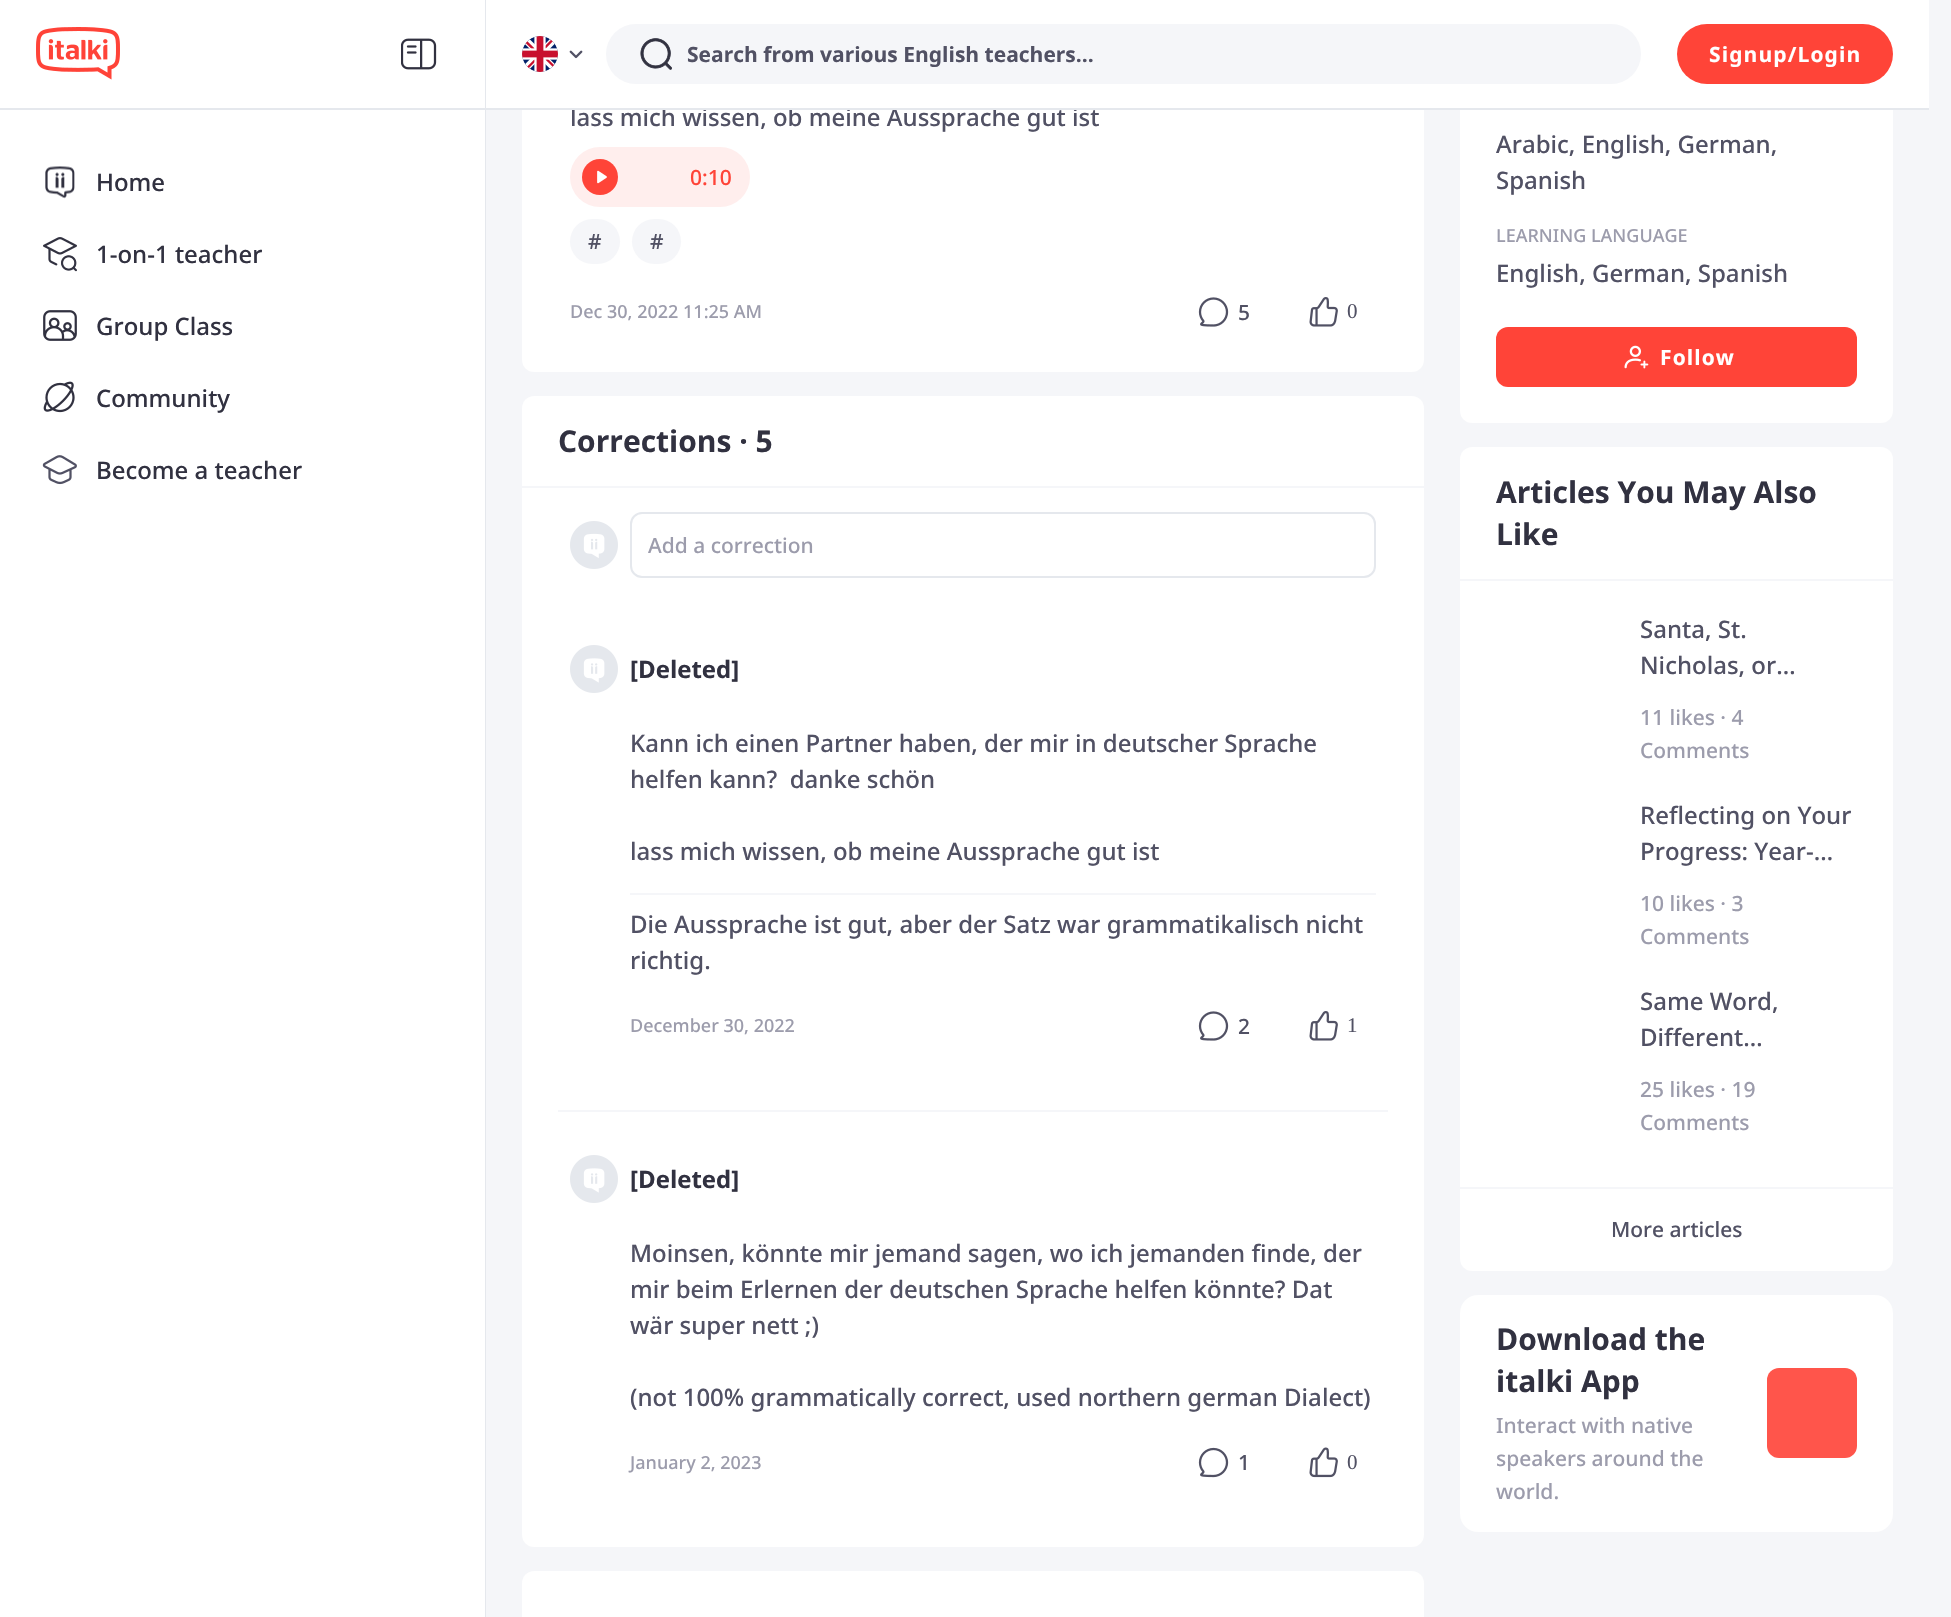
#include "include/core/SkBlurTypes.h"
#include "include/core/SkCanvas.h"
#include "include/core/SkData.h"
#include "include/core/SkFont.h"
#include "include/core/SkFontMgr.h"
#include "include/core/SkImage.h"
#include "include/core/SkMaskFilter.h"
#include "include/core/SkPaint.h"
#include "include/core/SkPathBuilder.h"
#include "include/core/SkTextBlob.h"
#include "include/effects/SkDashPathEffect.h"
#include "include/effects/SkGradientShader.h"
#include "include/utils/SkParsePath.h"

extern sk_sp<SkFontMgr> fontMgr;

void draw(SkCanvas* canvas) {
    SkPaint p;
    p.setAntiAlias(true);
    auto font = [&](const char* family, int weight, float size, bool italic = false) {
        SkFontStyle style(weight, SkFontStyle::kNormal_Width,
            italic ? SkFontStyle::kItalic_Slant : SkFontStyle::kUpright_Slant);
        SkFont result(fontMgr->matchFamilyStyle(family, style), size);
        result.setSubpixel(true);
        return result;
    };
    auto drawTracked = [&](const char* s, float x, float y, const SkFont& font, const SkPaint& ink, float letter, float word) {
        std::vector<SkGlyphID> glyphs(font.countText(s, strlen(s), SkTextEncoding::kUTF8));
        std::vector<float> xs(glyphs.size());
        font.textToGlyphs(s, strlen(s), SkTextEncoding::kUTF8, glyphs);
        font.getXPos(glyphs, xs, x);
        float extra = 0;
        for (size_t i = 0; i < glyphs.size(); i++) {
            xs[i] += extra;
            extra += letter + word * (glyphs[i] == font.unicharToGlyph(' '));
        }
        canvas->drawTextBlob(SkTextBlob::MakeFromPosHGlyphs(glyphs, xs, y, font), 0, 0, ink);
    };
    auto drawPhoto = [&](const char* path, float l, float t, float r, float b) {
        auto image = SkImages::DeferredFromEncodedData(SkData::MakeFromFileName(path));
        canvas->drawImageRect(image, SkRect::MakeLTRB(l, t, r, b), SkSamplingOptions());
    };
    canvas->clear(0xFFF5F6F9);
    {
        const struct { float l, t, r, b; SkColor color; } items[] = {
            {0, 0, 485, 1617, 0xFFFFFFFF},
            {485, 0, 486, 1617, 0xFFE5E8ED},
            {0, 108, 485, 110, 0xFFE5E8ED},
        };
        for (auto [l, t, r, b, color] : items) {
            p.setColor(color);
            canvas->drawRect(SkRect::MakeLTRB(l, t, r, b), p);
        }
    }
    drawPhoto("media/1.png", 36, 27, 120, 80);
    drawPhoto("media/2.png", 401, 38, 437, 70);
    drawPhoto("media/3.png", 45, 166, 75, 199);
    auto font1 = font("Noto Sans", 500, 24);
    p.setColor(0xFF313140);
    canvas->drawString("Home", 96, 191, font1, p);
    drawPhoto("media/4.png", 43, 237, 77, 272);
    canvas->drawString("1-on-1 teacher", 96, 263, font1, p);
    drawPhoto("media/5.png", 43, 310, 77, 341);
    canvas->drawString("Group Class", 96, 335, font1, p);
    drawPhoto("media/6.png", 43, 381, 75, 413);
    canvas->drawString("Community", 96, 407, font1, p);
    drawPhoto("media/7.png", 42, 455, 77, 485);
    canvas->drawString("Become a teacher", 96, 479, font1, p);
    p.setColor(0xFFFFFFFF);
    canvas->drawRoundRect(SkRect::MakeLTRB(522, -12, 1424, 372), 12, 12, p);
    p.setColor(0xFF515164);
    canvas->drawString("lass mich wissen, ob meine Aussprache gut ist", 570, 126, font1, p);
    p.setColor(0xFFFFFFFF);
    canvas->drawRoundRect(SkRect::MakeLTRB(1460, -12, 1893, 423), 12, 12, p);
    canvas->drawRect(SkRect::MakeLTRB(486, 0, 1929, 108), p);
    p.setColor(0xFFE5E8ED);
    canvas->drawRect(SkRect::MakeLTRB(486, 108, 1929, 110), p);
    p.setColor(0xFFF5F6F9);
    canvas->drawCircle(540, 54, 18, p);
    drawPhoto("media/8.png", 522, 36, 558, 72);
    drawPhoto("media/9.png", 569, 50, 583, 59);
    canvas->drawRoundRect(SkRect::MakeLTRB(606, 24, 1641, 84), 30, 30, p);
    drawPhoto("media/10.png", 640, 38, 672, 70);
    auto font2 = font("Noto Sans", 700, 21);
    p.setColor(0xFF515164);
    canvas->drawString("Search from various English teachers...", 687, 62, font2, p);
    p.setColor(0xFFFF4438);
    canvas->drawRoundRect(SkRect::MakeLTRB(1677, 24, 1893, 84), 30, 30, p);
    p.setColor(0xFFFFFFFF);
    drawTracked("Signup/Login", 1709, 62, font2, p, 1.1f, 0);
    p.setColor(0xFFFFEEED);
    canvas->drawRoundRect(SkRect::MakeLTRB(570, 147, 750, 207), 30, 30, p);
    p.setColor(0xFFFF4438);
    canvas->drawCircle(600, 177, 18, p);
    drawPhoto("media/11.png", 597, 170, 607, 184);
    auto font3 = font("Noto Sans", 500, 21);
    canvas->drawString("0:10", 690, 185, font3, p);
    p.setColor(0xFFF5F6F9);
    canvas->drawRoundRect(SkRect::MakeLTRB(570, 219, 620, 264), 22.5f, 22.5f, p);
    p.setColor(0xFF515164);
    canvas->drawString("#", 588, 249, font3, p);
    p.setColor(0xFFF5F6F9);
    canvas->drawRoundRect(SkRect::MakeLTRB(632, 219, 681, 264), 22.5f, 22.5f, p);
    p.setColor(0xFF515164);
    canvas->drawString("#", 650, 249, font3, p);
    auto font4 = font("Noto Sans", 500, 18);
    p.setColor(0xFF9C9CAC);
    canvas->drawString("Dec 30, 2022 11:25 AM", 570, 318, font4, p);
    drawPhoto("media/12.png", 1198, 297, 1229, 327);
    p.setColor(0xFF515164);
    canvas->drawString("5", 1238, 320, font3, p);
    drawPhoto("media/13.png", 1309, 297, 1338, 327);
    auto font5 = font("Liberation Serif", 400, 21);
    canvas->drawString("0", 1347, 318, font5, p);
    p.setColor(0xFFFFFFFF);
    canvas->drawRoundRect(SkRect::MakeLTRB(522, 396, 1424, 1547), 12, 12, p);
    auto font6 = font("Noto Sans", 700, 30);
    p.setColor(0xFF313140);
    canvas->drawString("Corrections · 5", 558, 452, font6, p);
    p.setColor(0xFFF5F6F9);
    canvas->drawRect(SkRect::MakeLTRB(522, 486, 1424, 488), p);
    drawPhoto("media/14.png", 570, 521, 618, 569);
    p.setStyle(SkPaint::kStroke_Style);
    p.setStrokeWidth(2);
    p.setColor(0xFFE5E8ED);
    canvas->drawRoundRect(SkRect::MakeLTRB(631, 513, 1375, 577), 11, 11, p);
    p.setStyle(SkPaint::kFill_Style);
    p.setColor(0xFF9C9CAC);
    canvas->drawString("Add a correction", 648, 553, font3, p);
    drawPhoto("media/15.png", 570, 645, 618, 693);
    auto font7 = font("Noto Sans", 700, 24);
    p.setColor(0xFF313140);
    canvas->drawString("[Deleted]", 630, 678, font7, p);
    p.setColor(0xFF515164);
    {
        const struct { const char* s; float x, y; } items[] = {
            {"Kann ich einen Partner haben, der mir in deutscher Sprache", 630, 752},
            {"helfen kann?  danke schön", 630, 788},
            {"lass mich wissen, ob meine Aussprache gut ist", 630, 860},
        };
        for (auto [s, x, y] : items) {
            canvas->drawString(s, x, y, font1, p);
        }
    }
    p.setColor(0xFFF5F6F9);
    canvas->drawRect(SkRect::MakeLTRB(630, 893, 1376, 895), p);
    p.setColor(0xFF515164);
    canvas->drawString("Die Aussprache ist gut, aber der Satz war grammatikalisch nicht", 630, 933, font1, p);
    canvas->drawString("richtig.", 630, 969, font1, p);
    p.setColor(0xFF9C9CAC);
    canvas->drawString("December 30, 2022", 630, 1032, font4, p);
    drawPhoto("media/12.png", 1198, 1011, 1229, 1041);
    p.setColor(0xFF515164);
    canvas->drawString("2", 1238, 1034, font3, p);
    drawPhoto("media/13.png", 1309, 1011, 1338, 1041);
    canvas->drawString("1", 1347, 1032, font5, p);
    p.setColor(0xFFF5F6F9);
    canvas->drawRect(SkRect::MakeLTRB(558, 1110, 1388, 1112), p);
    drawPhoto("media/15.png", 570, 1155, 618, 1203);
    p.setColor(0xFF313140);
    canvas->drawString("[Deleted]", 630, 1188, font7, p);
    p.setColor(0xFF515164);
    {
        const struct { const char* s; float x, y; } items[] = {
            {"Moinsen, könnte mir jemand sagen, wo ich jemanden finde, der", 630, 1262},
            {"mir beim Erlernen der deutschen Sprache helfen könnte? Dat", 630, 1298},
            {"wär super nett ;)", 630, 1334},
            {"(not 100% grammatically correct, used northern german Dialect)", 630, 1406},
        };
        for (auto [s, x, y] : items) {
            canvas->drawString(s, x, y, font1, p);
        }
    }
    p.setColor(0xFF9C9CAC);
    canvas->drawString("January 2, 2023", 630, 1469, font4, p);
    drawPhoto("media/16.png", 1198, 1447, 1229, 1478);
    p.setColor(0xFF515164);
    canvas->drawString("1", 1238, 1470, font3, p);
    drawPhoto("media/17.png", 1309, 1447, 1338, 1478);
    canvas->drawString("0", 1347, 1469, font5, p);
    p.setColor(0xFFFFFFFF);
    canvas->drawRoundRect(SkRect::MakeLTRB(522, 1571, 1424, 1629), 12, 12, p);
    p.setColor(0xFF515164);
    canvas->drawString("Arabic, English, German,", 1496, 153, font1, p);
    canvas->drawString("Spanish", 1496, 189, font1, p);
    p.setColor(0xFF9C9CAC);
    canvas->drawString("LEARNING LANGUAGE", 1496, 242, font4, p);
    p.setColor(0xFF515164);
    canvas->drawString("English, German, Spanish", 1496, 282, font1, p);
    p.setColor(0xFFFF4438);
    canvas->drawRoundRect(SkRect::MakeLTRB(1496, 327, 1857, 387), 12, 12, p);
    drawPhoto("media/18.png", 1624, 345, 1649, 369);
    p.setColor(0xFFFFFFFF);
    drawTracked("Follow", 1660, 365, font2, p, 1.1f, 0);
    canvas->drawRoundRect(SkRect::MakeLTRB(1460, 447, 1893, 1271), 12, 12, p);
    p.setColor(0xFFF5F6F9);
    canvas->drawRect(SkRect::MakeLTRB(1460, 579, 1893, 581), p);
    p.setColor(0xFF313140);
    canvas->drawString("Articles You May Also", 1496, 503, font6, p);
    canvas->drawString("Like", 1496, 545, font6, p);
    p.setColor(0xFF515164);
    canvas->drawString("Santa, St.", 1640, 638, font1, p);
    canvas->drawString("Nicholas, or…", 1640, 674, font1, p);
    p.setColor(0xFF9C9CAC);
    canvas->drawString("11 likes · 4", 1640, 725, font3, p);
    canvas->drawString("Comments", 1640, 758, font3, p);
    p.setColor(0xFF515164);
    canvas->drawString("Reflecting on Your", 1640, 824, font1, p);
    canvas->drawString("Progress: Year-…", 1640, 860, font1, p);
    p.setColor(0xFF9C9CAC);
    canvas->drawString("10 likes · 3", 1640, 911, font3, p);
    canvas->drawString("Comments", 1640, 944, font3, p);
    p.setColor(0xFF515164);
    canvas->drawString("Same Word,", 1640, 1010, font1, p);
    canvas->drawString("Different…", 1640, 1046, font1, p);
    p.setColor(0xFF9C9CAC);
    canvas->drawString("25 likes · 19", 1640, 1097, font3, p);
    canvas->drawString("Comments", 1640, 1130, font3, p);
    p.setColor(0xFFF5F6F9);
    canvas->drawRect(SkRect::MakeLTRB(1460, 1187, 1893, 1189), p);
    p.setColor(0xFF515164);
    canvas->drawString("More articles", 1611, 1237, font3, p);
    p.setColor(0xFFFFFFFF);
    canvas->drawRoundRect(SkRect::MakeLTRB(1460, 1295, 1893, 1532), 18, 18, p);
    p.setColor(0xFF313140);
    canvas->drawString("Download the", 1496, 1350, font6, p);
    canvas->drawString("italki App", 1496, 1392, font6, p);
    p.setColor(0xFF9C9CAC);
    {
        const struct { const char* s; float x, y; } items[] = {
            {"Interact with native", 1496, 1433},
            {"speakers around the", 1496, 1466},
            {"world.", 1496, 1499},
        };
        for (auto [s, x, y] : items) {
            canvas->drawString(s, x, y, font3, p);
        }
    }
    p.setColor(0xFFFF554B);
    canvas->drawRoundRect(SkRect::MakeLTRB(1767, 1368, 1857, 1458), 12, 12, p);
}
